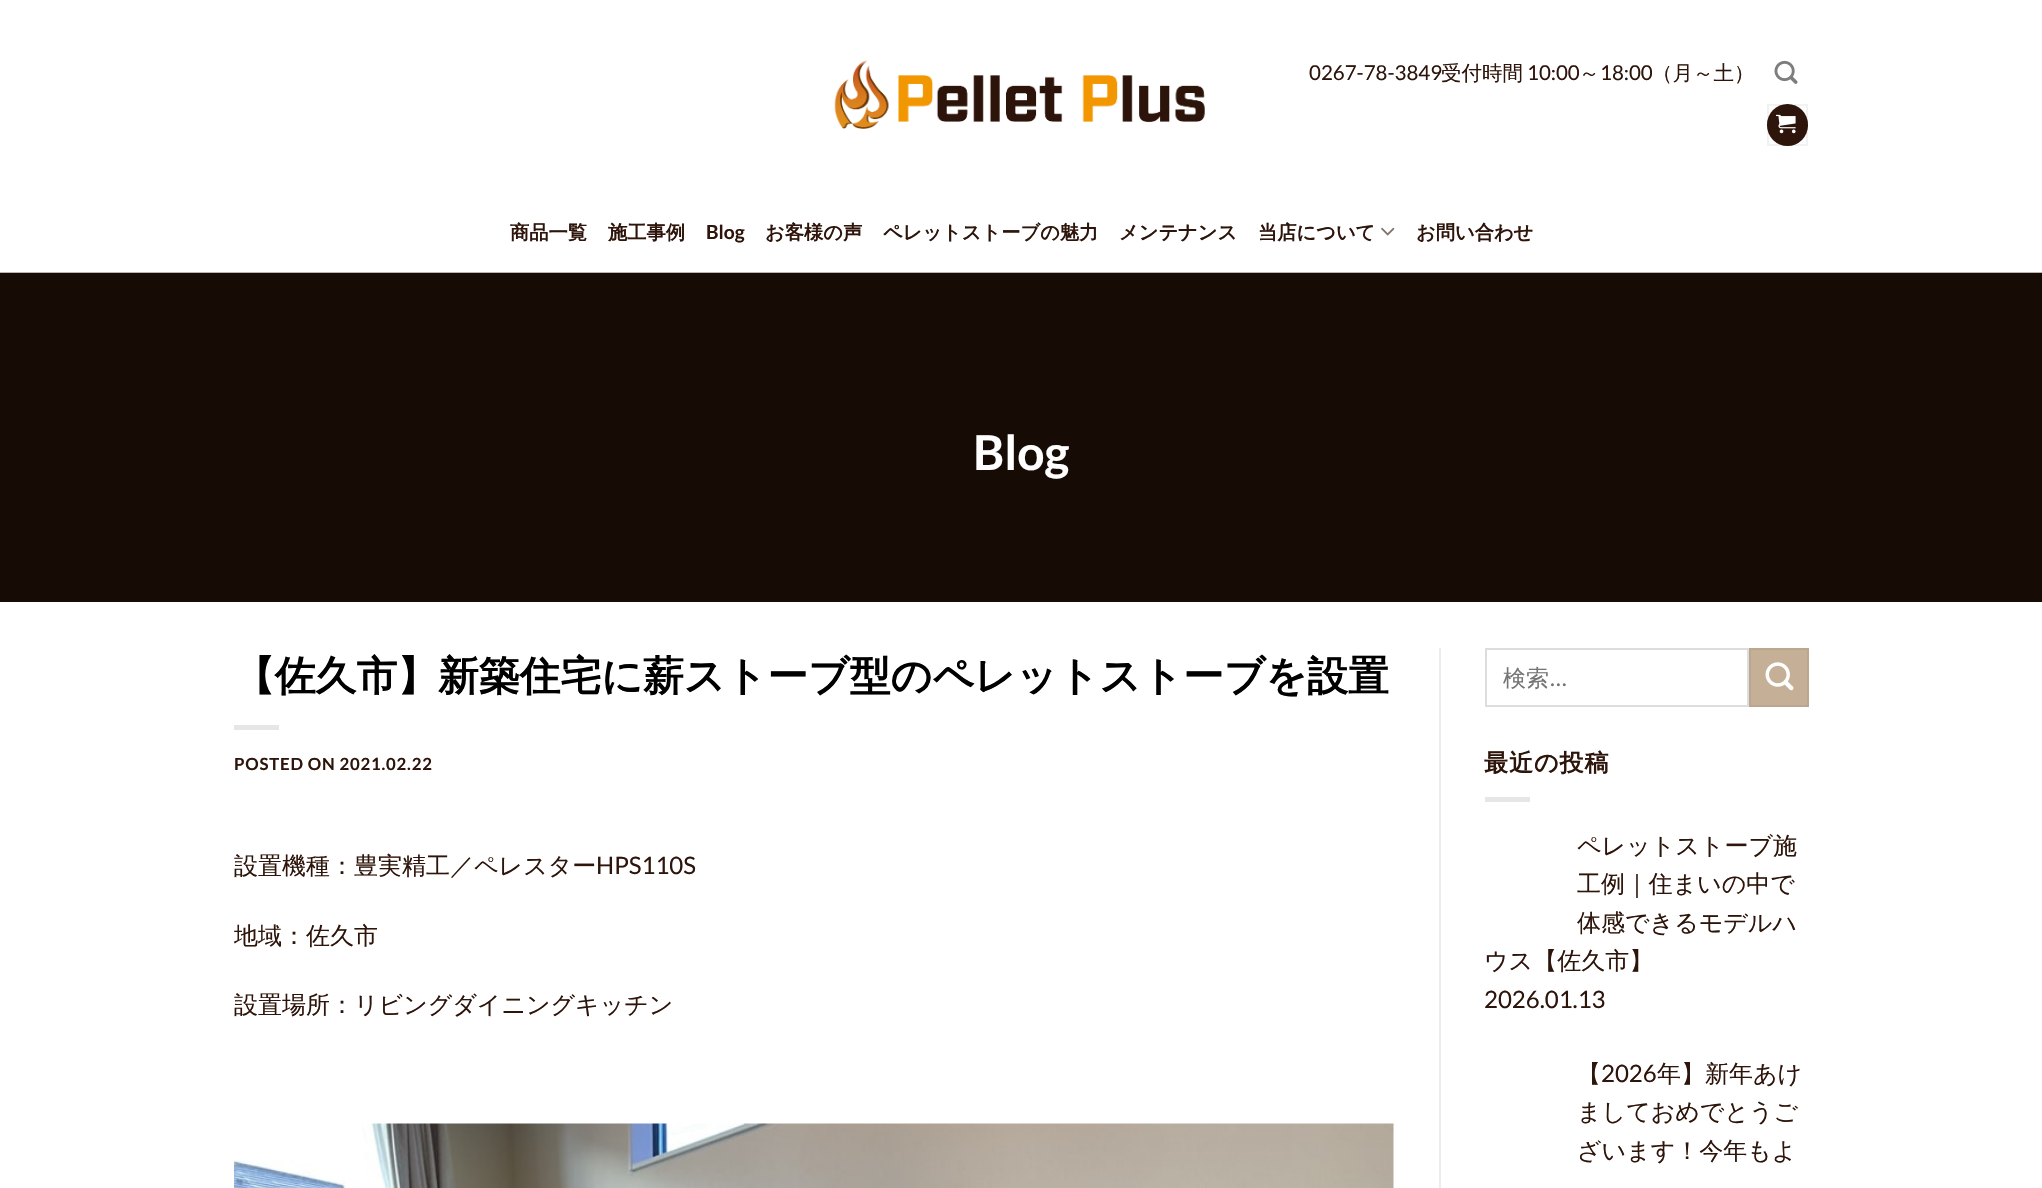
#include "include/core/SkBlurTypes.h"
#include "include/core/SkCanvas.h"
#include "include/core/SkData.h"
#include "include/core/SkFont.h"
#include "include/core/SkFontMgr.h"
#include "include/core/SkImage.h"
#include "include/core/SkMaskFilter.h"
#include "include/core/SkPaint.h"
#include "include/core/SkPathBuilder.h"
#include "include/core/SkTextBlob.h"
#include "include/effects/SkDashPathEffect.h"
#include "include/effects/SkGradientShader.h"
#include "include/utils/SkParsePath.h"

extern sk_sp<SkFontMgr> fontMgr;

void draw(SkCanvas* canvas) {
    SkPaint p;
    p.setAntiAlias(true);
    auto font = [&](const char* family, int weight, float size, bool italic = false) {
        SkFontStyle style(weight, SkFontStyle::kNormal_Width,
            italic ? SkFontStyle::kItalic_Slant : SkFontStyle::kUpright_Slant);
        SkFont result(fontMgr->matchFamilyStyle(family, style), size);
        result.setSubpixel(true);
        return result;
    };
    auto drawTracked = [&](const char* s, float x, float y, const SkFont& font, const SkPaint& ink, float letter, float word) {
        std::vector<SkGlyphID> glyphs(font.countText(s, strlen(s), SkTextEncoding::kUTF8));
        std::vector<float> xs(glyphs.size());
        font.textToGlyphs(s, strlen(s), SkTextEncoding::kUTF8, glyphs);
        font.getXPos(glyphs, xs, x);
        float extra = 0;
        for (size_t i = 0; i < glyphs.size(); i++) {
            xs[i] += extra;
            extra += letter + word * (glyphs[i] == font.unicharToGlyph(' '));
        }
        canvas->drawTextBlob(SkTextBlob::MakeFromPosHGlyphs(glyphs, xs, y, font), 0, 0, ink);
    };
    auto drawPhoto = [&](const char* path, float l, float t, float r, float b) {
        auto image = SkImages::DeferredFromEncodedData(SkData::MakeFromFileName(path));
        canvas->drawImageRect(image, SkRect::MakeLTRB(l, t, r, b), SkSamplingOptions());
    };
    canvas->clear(0xFFFFFFFF);
    drawPhoto("media/1.png", 834, 60, 1205, 129);
    auto font1 = font("Lato", 400, 20.5f);
    p.setColor(0xFF2E150B);
    canvas->drawString("0267-78-3849", 1309, 80, font1, p);
    auto font2 = font("WenQuanYi Zen Hei", 500, 20.5f);
    canvas->drawString("受付時間", 1441, 80, font2, p);
    canvas->drawString("10:00", 1527, 80, font1, p);
    canvas->drawString("～", 1579, 80, font2, p);
    canvas->drawString("18:00", 1600, 80, font1, p);
    canvas->drawString("（月～土）", 1652, 80, font2, p);
    drawPhoto("media/2.png", 1774, 60, 1798, 84);
    canvas->drawRoundRect(SkRect::MakeLTRB(1767, 104, 1808, 146), 20.5f, 20.5f, p);
    p.setStyle(SkPaint::kStroke_Style);
    p.setStrokeWidth(2);
    p.setColor(0x0D000000);
    canvas->drawRect(SkRect::MakeLTRB(1768, 105, 1807, 145), p);
    drawPhoto("media/3.png", 1776, 114, 1796, 134);
    auto font3 = font("WenQuanYi Zen Hei", 700, 19.25f);
    p.setStyle(SkPaint::kFill_Style);
    p.setColor(0xFF2E150B);
    canvas->drawString("商品一覧", 510, 239, font3, p);
    canvas->drawString("施工事例", 608, 239, font3, p);
    auto font4 = font("Lato", 700, 19.25f);
    canvas->drawString("Blog", 706, 239, font4, p);
    {
        const struct { const char* s; float x, y; } items[] = {
            {"お客様の声", 765, 239},
            {"ペレットストーブの魅力", 883, 239},
            {"メンテナンス", 1119, 239},
            {"当店について", 1258, 239},
        };
        for (auto [s, x, y] : items) {
            canvas->drawString(s, x, y, font3, p);
        }
    }
    drawPhoto("media/4.png", 1381, 227, 1395, 236);
    canvas->drawString("お問い合わせ", 1416, 239, font3, p);
    p.setColor(0xFF170B06);
    canvas->drawRect(SkRect::MakeLTRB(0, 273, 2042, 602), p);
    p.setColor(0xFFB9B5B4);
    canvas->drawRect(SkRect::MakeLTRB(0, 272, 2042, 273), p);
    auto font5 = font("Lato", 700, 48);
    p.setColor(0xFFFFFFFF);
    canvas->drawString("Blog", 973, 470, font5, p);
    auto font6 = font("WenQuanYi Zen Hei", 700, 40.8f);
    p.setColor(0xFF000000);
    canvas->drawString("【佐久市】新築住宅に薪ストーブ型のペレットストーブを設置", 234, 690, font6, p);
    p.setColor(0xFFE6E6E6);
    canvas->drawRect(SkRect::MakeLTRB(234, 725, 279, 730), p);
    auto font7 = font("Lato", 700, 16.75f);
    p.setColor(0xFF2E150B);
    drawTracked("POSTED ON 2021.02.22", 234, 770, font7, p, 0.8f, 0);
    auto font8 = font("WenQuanYi Zen Hei", 500, 24);
    canvas->drawString("設置機種：豊実精工／ペレスター", 234, 874, font8, p);
    auto font9 = font("Lato", 400, 24);
    canvas->drawString("HPS110S", 596, 874, font9, p);
    canvas->drawString("地域：佐久市", 234, 944, font8, p);
    canvas->drawString("設置場所：リビングダイニングキッチン", 234, 1013, font8, p);
    drawPhoto("media/5.png", 234, 1123, 1394, 1188);
    p.setColor(0xFFECECEC);
    canvas->drawRect(SkRect::MakeLTRB(1439, 648, 1441, 1188), p);
    p.setStyle(SkPaint::kStroke_Style);
    p.setColor(0xFFDDDDDD);
    canvas->drawRect(SkRect::MakeLTRB(1486, 649, 1748, 706), p);
    auto font10 = font("WenQuanYi Zen Hei", 500, 23);
    p.setStyle(SkPaint::kFill_Style);
    p.setColor(0xFF757575);
    canvas->drawString("検索", 1503, 686, font10, p);
    auto font11 = font("Lato", 400, 23);
    canvas->drawString("…", 1550, 686, font11, p);
    p.setColor(0xFFC5B097);
    canvas->drawRect(SkRect::MakeLTRB(1750, 649, 1808, 706), p);
    p.setStyle(SkPaint::kStroke_Style);
    p.setColor(0xFFBBA78F);
    canvas->drawRect(SkRect::MakeLTRB(1750, 649, 1808, 706), p);
    drawPhoto("media/6.png", 1765, 662, 1794, 691);
    auto font12 = font("WenQuanYi Zen Hei", 700, 24);
    p.setStyle(SkPaint::kFill_Style);
    p.setColor(0xFF2E150B);
    drawTracked("最近の投稿", 1484, 771, font12, p, 1, 0);
    p.setColor(0xFFE6E6E6);
    canvas->drawRect(SkRect::MakeLTRB(1485, 797, 1530, 802), p);
    p.setColor(0xFF2E150B);
    {
        const struct { const char* s; float x, y; } items[] = {
            {"ペレットストーブ施", 1577, 854},
            {"工例｜住まいの中で", 1577, 892},
            {"体感できるモデルハ", 1577, 931},
            {"ウス【佐久市】", 1484, 969},
        };
        for (auto [s, x, y] : items) {
            canvas->drawString(s, x, y, font8, p);
        }
    }
    canvas->drawString("2026.01.13", 1484, 1008, font9, p);
    canvas->drawString("【", 1577, 1082, font8, p);
    canvas->drawString("2026", 1601, 1082, font9, p);
    {
        const struct { const char* s; float x, y; } items[] = {
            {"年】新年あけ", 1657, 1082},
            {"ましておめでとうご", 1577, 1120},
            {"ざいます！今年もよ", 1577, 1159},
        };
        for (auto [s, x, y] : items) {
            canvas->drawString(s, x, y, font8, p);
        }
    }
}
